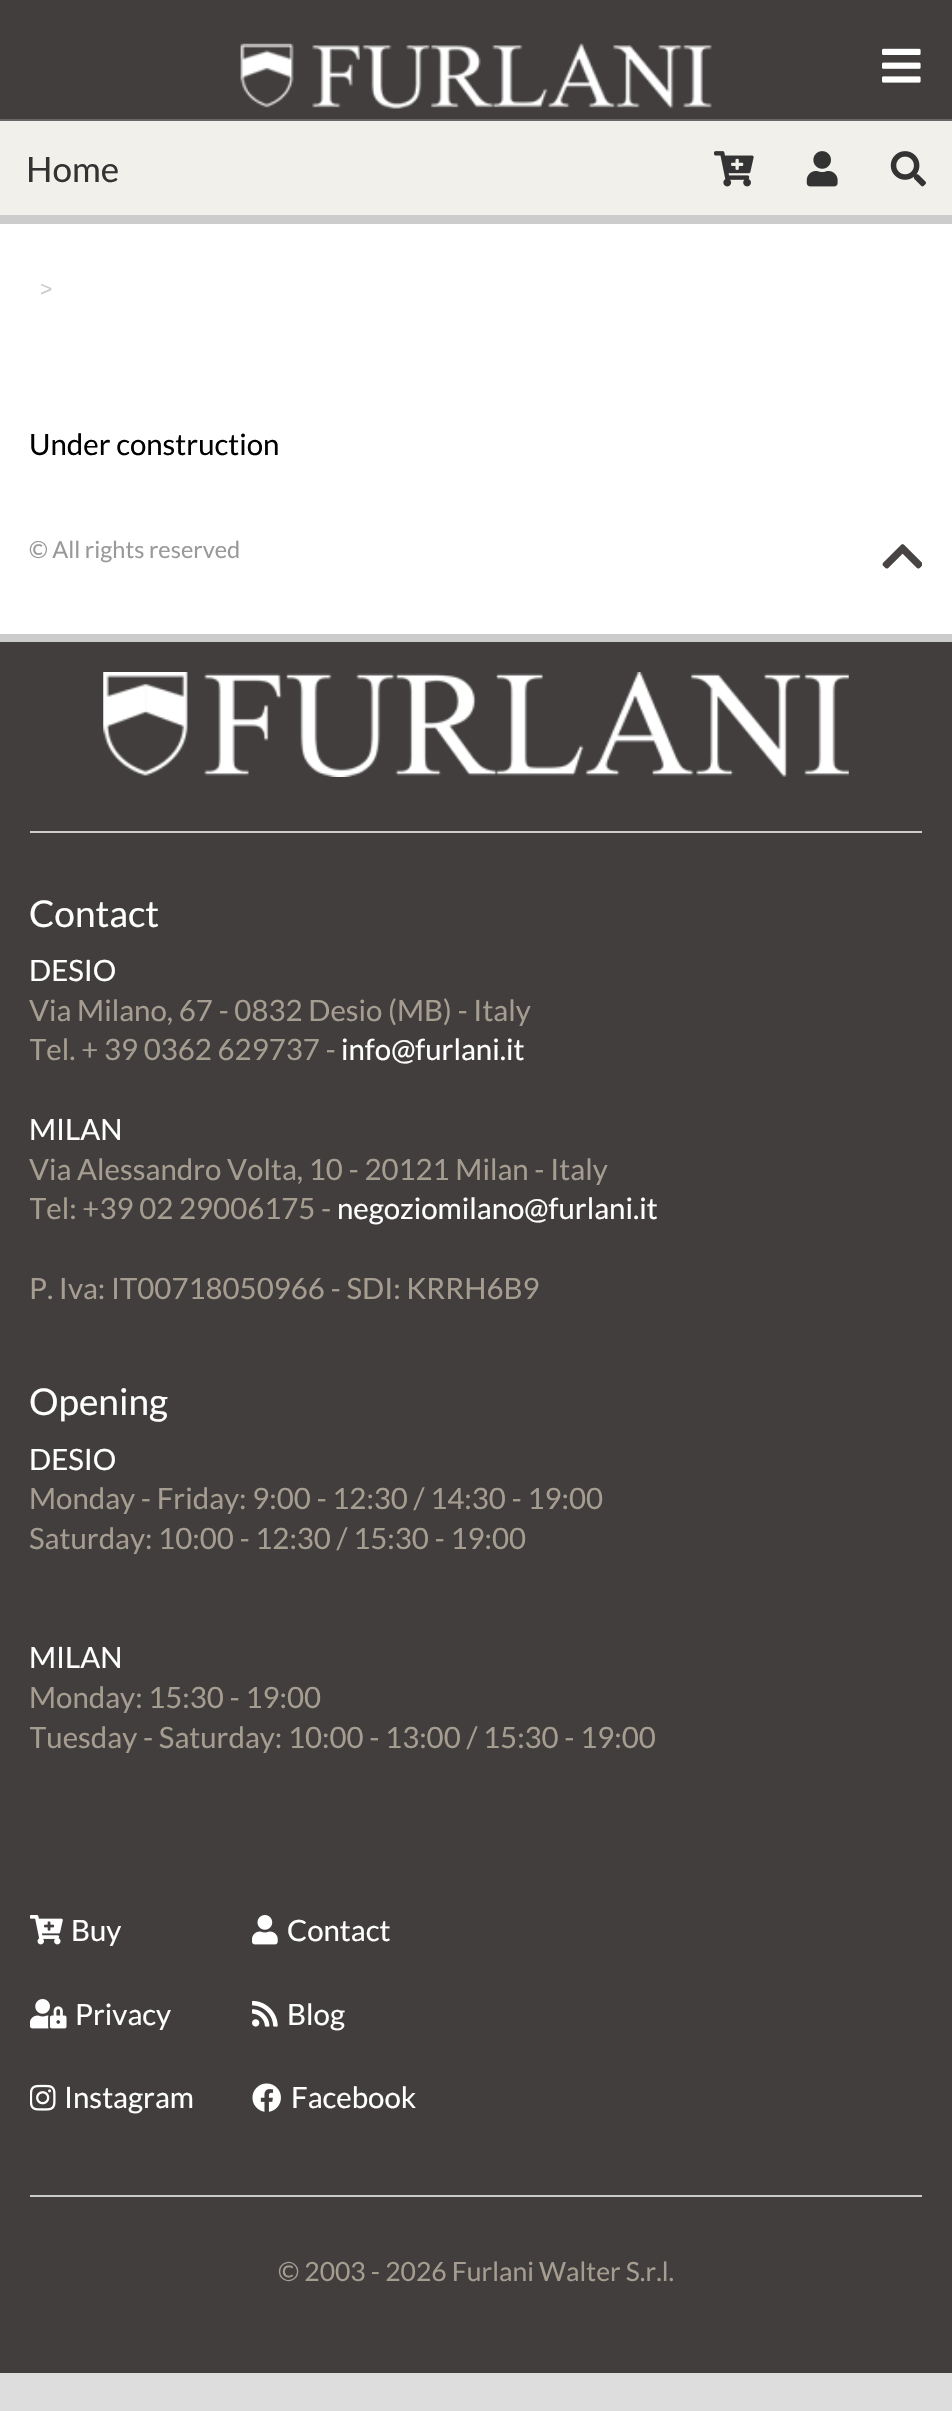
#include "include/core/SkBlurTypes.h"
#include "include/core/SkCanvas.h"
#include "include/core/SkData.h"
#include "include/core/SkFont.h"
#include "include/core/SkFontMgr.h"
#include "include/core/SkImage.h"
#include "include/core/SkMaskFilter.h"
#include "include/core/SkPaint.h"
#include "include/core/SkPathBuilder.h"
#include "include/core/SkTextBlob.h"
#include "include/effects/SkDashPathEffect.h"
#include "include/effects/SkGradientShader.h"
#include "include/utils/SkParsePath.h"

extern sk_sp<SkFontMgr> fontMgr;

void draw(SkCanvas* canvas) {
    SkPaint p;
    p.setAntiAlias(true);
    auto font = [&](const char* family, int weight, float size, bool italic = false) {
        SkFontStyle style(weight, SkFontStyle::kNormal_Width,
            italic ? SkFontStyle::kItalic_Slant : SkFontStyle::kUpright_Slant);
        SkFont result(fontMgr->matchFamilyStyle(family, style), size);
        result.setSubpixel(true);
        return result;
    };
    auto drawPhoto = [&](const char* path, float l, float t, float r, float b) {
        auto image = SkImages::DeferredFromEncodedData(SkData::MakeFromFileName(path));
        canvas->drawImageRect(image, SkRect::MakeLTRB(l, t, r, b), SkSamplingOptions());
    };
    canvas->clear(0xFFDDDDDD);
    p.setColor(0xFF423E3E);
    canvas->drawRect(SkRect::MakeLTRB(0, 0, 952, 119), p);
    p.setColor(0xFF666666);
    canvas->drawRect(SkRect::MakeLTRB(0, 119, 952, 121), p);
    drawPhoto("media/1.png", 882, 48, 921, 83);
    drawPhoto("media/2.png", 240, 43, 712, 109);
    p.setColor(0xFFF1F0EA);
    canvas->drawRect(SkRect::MakeLTRB(0, 121, 952, 215), p);
    p.setColor(0xFFCCCCCC);
    canvas->drawRect(SkRect::MakeLTRB(0, 215, 952, 224), p);
    auto font1 = font("Lato", 400, 35);
    p.setColor(0xFF333333);
    canvas->drawString("Home", 26, 182, font1, p);
    drawPhoto("media/3.png", 714, 151, 754, 187);
    drawPhoto("media/4.png", 806, 151, 838, 187);
    drawPhoto("media/5.png", 890, 151, 926, 187);
    p.setColor(0xFFFFFFFF);
    canvas->drawRect(SkRect::MakeLTRB(0, 224, 952, 634), p);
    auto font2 = font("Liberation Sans", 400, 21);
    p.setColor(0xFFCCCCCC);
    canvas->drawString(">", 40, 296, font2, p);
    auto font3 = font("Lato", 400, 29.4f);
    p.setColor(0xFF000000);
    canvas->drawString("Under construction", 29, 455, font3, p);
    auto font4 = font("Lato", 400, 23.5f);
    p.setColor(0xFF999999);
    canvas->drawString("© All rights reserved", 29, 558, font4, p);
    drawPhoto("media/6.png", 882, 544, 922, 569);
    p.setColor(0xFF423E3E);
    canvas->drawRect(SkRect::MakeLTRB(0, 642, 952, 2373), p);
    p.setColor(0xFFCCCCCC);
    canvas->drawRect(SkRect::MakeLTRB(0, 634, 952, 642), p);
    drawPhoto("media/7.png", 103, 672, 849, 777);
    canvas->drawRect(SkRect::MakeLTRB(30, 831, 922, 833), p);
    auto font5 = font("Lato", 400, 37);
    p.setColor(0xFFFFFFFF);
    canvas->drawString("Contact", 29, 927, font5, p);
    canvas->drawString("DESIO", 29, 981, font3, p);
    p.setColor(0xFFA59D90);
    canvas->drawString("Via Milano, 67 - 0832 Desio (MB) - Italy", 29, 1021, font3, p);
    canvas->save();
    canvas->clipRect(SkRect::MakeLTRB(30, 879, 922, 2238));
    canvas->drawString("Tel. + 39 0362 629737 -", 29, 1060, font3, p);
    canvas->restore();
    p.setColor(0xFFFFFFFF);
    canvas->drawString("info@furlani.it", 341, 1060, font3, p);
    canvas->drawString("MILAN", 29, 1140, font3, p);
    p.setColor(0xFFA59D90);
    canvas->drawString("Via Alessandro Volta, 10 - 20121 Milan - Italy", 29, 1180, font3, p);
    canvas->save();
    canvas->clipRect(SkRect::MakeLTRB(30, 879, 922, 2238));
    canvas->drawString("Tel: +39 02 29006175 -", 29, 1219, font3, p);
    canvas->restore();
    p.setColor(0xFFFFFFFF);
    canvas->drawString("negoziomilano@furlani.it", 337, 1219, font3, p);
    p.setColor(0xFFA59D90);
    canvas->drawString("P. Iva: IT00718050966 - SDI: KRRH6B9", 29, 1299, font3, p);
    p.setColor(0xFFFFFFFF);
    canvas->drawString("Opening", 29, 1415, font5, p);
    canvas->drawString("DESIO", 29, 1470, font3, p);
    p.setColor(0xFFA59D90);
    canvas->drawString("Monday - Friday: 9:00 - 12:30 / 14:30 - 19:00", 29, 1509, font3, p);
    canvas->drawString("Saturday: 10:00 - 12:30 / 15:30 - 19:00", 29, 1549, font3, p);
    p.setColor(0xFFFFFFFF);
    canvas->drawString("MILAN", 29, 1668, font3, p);
    p.setColor(0xFFA59D90);
    canvas->drawString("Monday: 15:30 - 19:00", 29, 1708, font3, p);
    canvas->save();
    canvas->clipRect(SkRect::MakeLTRB(30, 879, 922, 2238));
    canvas->drawString("Tuesday - Saturday: 10:00 - 13:00 / 15:30 - 19:00", 29, 1748, font3, p);
    canvas->restore();
    drawPhoto("media/8.png", 30, 1915, 63, 1945);
    p.setColor(0xFFFFFFFF);
    canvas->drawString("Buy", 71, 1941, font3, p);
    drawPhoto("media/9.png", 252, 1915, 278, 1945);
    canvas->drawString("Contact", 287, 1941, font3, p);
    drawPhoto("media/10.png", 30, 1999, 67, 2029);
    canvas->drawString("Privacy", 75, 2025, font3, p);
    drawPhoto("media/11.png", 252, 2000, 278, 2027);
    canvas->drawString("Blog", 287, 2025, font3, p);
    drawPhoto("media/12.png", 30, 2084, 56, 2111);
    canvas->drawString("Instagram", 64, 2108, font3, p);
    drawPhoto("media/13.png", 252, 2083, 281, 2112);
    canvas->drawString("Facebook", 291, 2108, font3, p);
    p.setColor(0xFFCCCCCC);
    canvas->drawRect(SkRect::MakeLTRB(30, 2195, 922, 2197), p);
    auto font6 = font("Lato", 400, 26.5f);
    p.setColor(0xFFA59D90);
    canvas->drawString("© 2003 - 2026 Furlani Walter S.r.l.", 278, 2281, font6, p);
}
